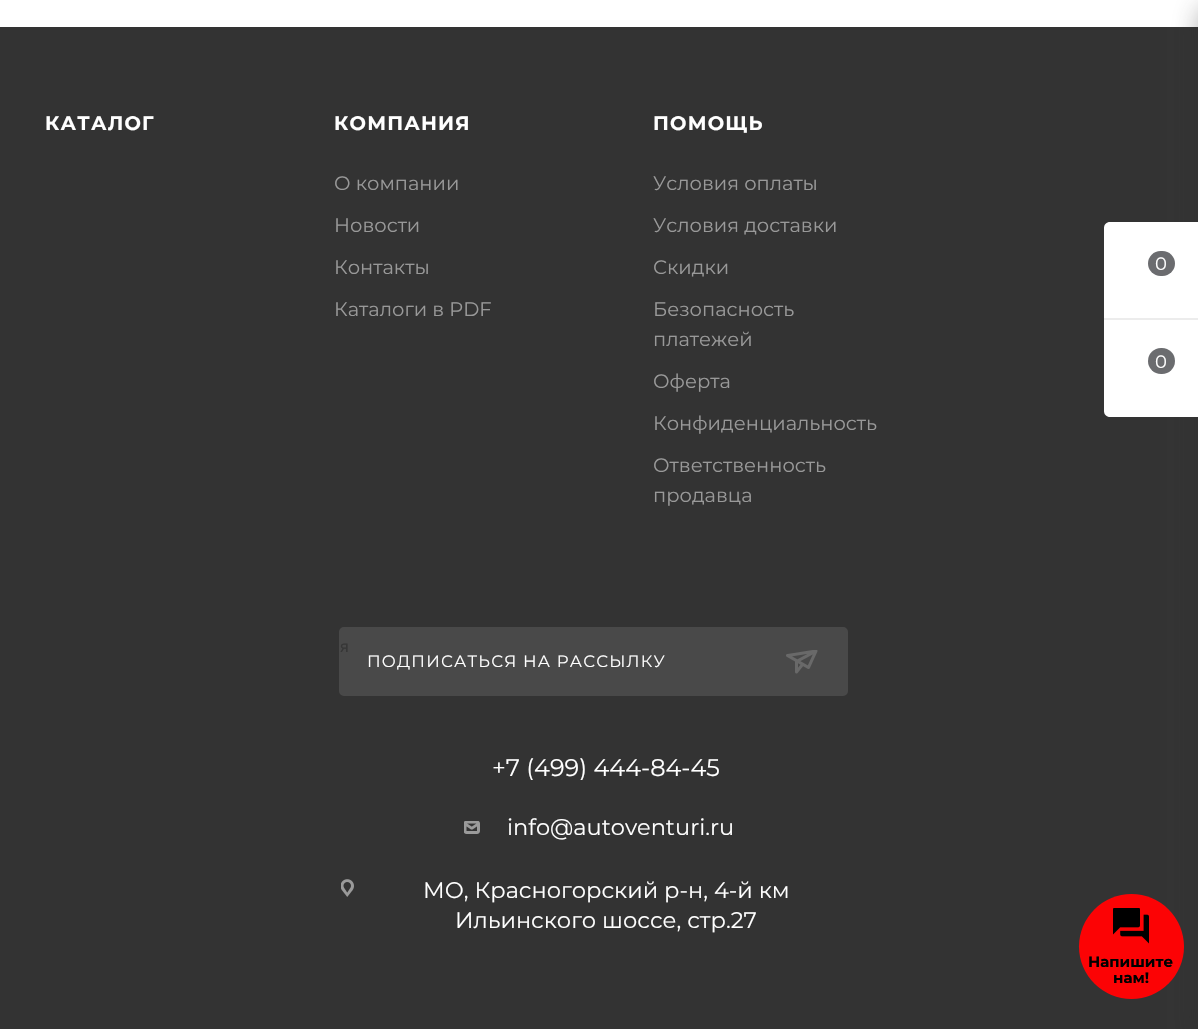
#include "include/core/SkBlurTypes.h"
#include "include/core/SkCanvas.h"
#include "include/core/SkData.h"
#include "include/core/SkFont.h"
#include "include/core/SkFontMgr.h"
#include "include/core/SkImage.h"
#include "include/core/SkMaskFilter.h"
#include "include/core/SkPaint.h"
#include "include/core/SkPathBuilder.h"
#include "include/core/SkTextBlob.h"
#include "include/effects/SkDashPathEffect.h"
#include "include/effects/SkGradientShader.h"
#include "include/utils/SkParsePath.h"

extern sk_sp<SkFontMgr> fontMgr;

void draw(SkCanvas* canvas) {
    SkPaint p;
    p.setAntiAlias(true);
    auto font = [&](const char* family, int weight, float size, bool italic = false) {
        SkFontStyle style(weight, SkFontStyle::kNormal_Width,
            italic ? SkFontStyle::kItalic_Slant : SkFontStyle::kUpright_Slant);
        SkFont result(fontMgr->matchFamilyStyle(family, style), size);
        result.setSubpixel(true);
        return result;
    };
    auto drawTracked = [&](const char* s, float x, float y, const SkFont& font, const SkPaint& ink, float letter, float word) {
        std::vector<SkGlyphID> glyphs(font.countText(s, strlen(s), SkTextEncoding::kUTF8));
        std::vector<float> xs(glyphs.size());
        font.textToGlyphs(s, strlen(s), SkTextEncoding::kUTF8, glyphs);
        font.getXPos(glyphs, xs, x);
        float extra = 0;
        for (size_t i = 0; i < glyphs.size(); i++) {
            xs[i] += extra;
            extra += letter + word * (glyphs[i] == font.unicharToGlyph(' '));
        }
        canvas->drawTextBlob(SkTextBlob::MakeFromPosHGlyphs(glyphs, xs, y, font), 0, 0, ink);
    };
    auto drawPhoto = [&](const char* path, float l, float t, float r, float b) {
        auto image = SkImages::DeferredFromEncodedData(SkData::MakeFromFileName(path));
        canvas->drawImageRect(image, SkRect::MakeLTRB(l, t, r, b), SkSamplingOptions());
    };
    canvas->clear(0xFFFFFFFF);
    p.setColor(0xFF333333);
    canvas->drawRect(SkRect::MakeLTRB(0, 27, 1198, 1029), p);
    auto font1 = font("Montserrat", 700, 19.5f);
    p.setColor(0xFFFFFFFF);
    drawTracked("КАТАЛОГ", 45, 130, font1, p, 1.2f, 0);
    drawTracked("КОМПАНИЯ", 334, 130, font1, p, 1.2f, 0);
    auto font2 = font("Montserrat", 400, 19.5f);
    p.setColor(0xFF999999);
    {
        const struct { const char* s; float x, y; } items[] = {
            {"О компании", 334, 190},
            {"Новости", 334, 232},
            {"Контакты", 334, 274},
            {"Каталоги в PDF", 334, 316},
        };
        for (auto [s, x, y] : items) {
            canvas->drawString(s, x, y, font2, p);
        }
    }
    p.setColor(0xFFFFFFFF);
    drawTracked("ПОМОЩЬ", 653, 130, font1, p, 1.2f, 0);
    p.setColor(0xFF999999);
    {
        const struct { const char* s; float x, y; } items[] = {
            {"Условия оплаты", 653, 190},
            {"Условия доставки", 653, 232},
            {"Скидки", 653, 274},
            {"Безопасность", 653, 316},
            {"платежей", 653, 346},
            {"Оферта", 653, 388},
            {"Конфиденциальность", 653, 430},
            {"Ответственность", 653, 472},
            {"продавца", 653, 502},
        };
        for (auto [s, x, y] : items) {
            canvas->drawString(s, x, y, font2, p);
        }
    }
    p.setColor(0xFF494949);
    canvas->drawRoundRect(SkRect::MakeLTRB(340, 628, 847, 695), 4, 4, p);
    p.setStyle(SkPaint::kStroke_Style);
    p.setStrokeWidth(2);
    canvas->drawRoundRect(SkRect::MakeLTRB(340, 628, 847, 695), 4, 4, p);
    auto font3 = font("Montserrat", 400, 16.5f);
    p.setStyle(SkPaint::kFill_Style);
    p.setColor(0xFFFFFFFF);
    drawTracked("ПОДПИСАТЬСЯ НА РАССЫЛКУ", 367, 667, font3, p, 1.2f, 0);
    drawPhoto("media/1.png", 786, 650, 818, 674);
    canvas->save();
    canvas->clipRect(SkRect::MakeLTRB(449, 756, 740, 780));
    auto font4 = font("Montserrat", 400, 24);
    canvas->drawString("+7 (499) 444-84-45", 492, 776, font4, p);
    canvas->restore();
    drawPhoto("media/2.png", 464, 821, 480, 834);
    auto font5 = font("Montserrat", 400, 22.5f);
    canvas->drawString("info@autoventuri.ru", 507, 835, font5, p);
    drawPhoto("media/3.png", 341, 879, 354, 897);
    canvas->drawString("МО, Красногорский р-н, 4-й км", 423, 898, font5, p);
    canvas->drawString("Ильинского шоссе, стр.27", 455, 928, font5, p);
    p.setColor(0x662C2C2C);
    p.setMaskFilter(SkMaskFilter::MakeBlur(kNormal_SkBlurStyle, 13.5f));
    canvas->drawRoundRect(SkRect::MakeLTRB(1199, 9, 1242, 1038), 3, 3, p);
    p.setMaskFilter(nullptr);
    p.setColor(0xFFFFFFFF);
    canvas->drawPath(SkPathBuilder().moveTo(1110, 222).lineTo(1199, 222).lineTo(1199, 417).lineTo(1110, 417).cubicTo(1106.5f, 417, 1104, 414.5f, 1104, 411).lineTo(1104, 228).cubicTo(1104, 224.5f, 1106.5f, 222, 1110, 222).close().detach(), p);
    p.setColor(0xFFECECEC);
    canvas->drawRect(SkRect::MakeLTRB(1104, 318, 1198, 320), p);
    p.setColor(0xFF6B6C6F);
    canvas->drawRoundRect(SkRect::MakeLTRB(1148, 251, 1175, 276), 12.5f, 12.5f, p);
    auto font6 = font("Montserrat", 400, 18);
    p.setColor(0xFFFFFFFF);
    canvas->drawString("0", 1155, 270, font6, p);
    p.setColor(0xFF6B6C6F);
    canvas->drawRoundRect(SkRect::MakeLTRB(1148, 348, 1175, 374), 13, 13, p);
    p.setColor(0xFFFFFFFF);
    canvas->drawString("0", 1155, 368, font6, p);
    auto font7 = font("Roboto", 400, 16);
    p.setColor(0xFF363636);
    canvas->drawString("я", 340, 652, font7, p);
    p.setColor(0xFFFC0305);
    canvas->drawCircle(1131.5f, 946.5f, 52.5f, p);
    drawPhoto("media/4.png", 1113, 908, 1149, 944);
    auto font8 = font("Montserrat", 700, 15);
    p.setColor(0xFF000000);
    canvas->drawString("Напишите", 1088, 967, font8, p);
    canvas->drawString("нам!", 1113, 983, font8, p);
}
